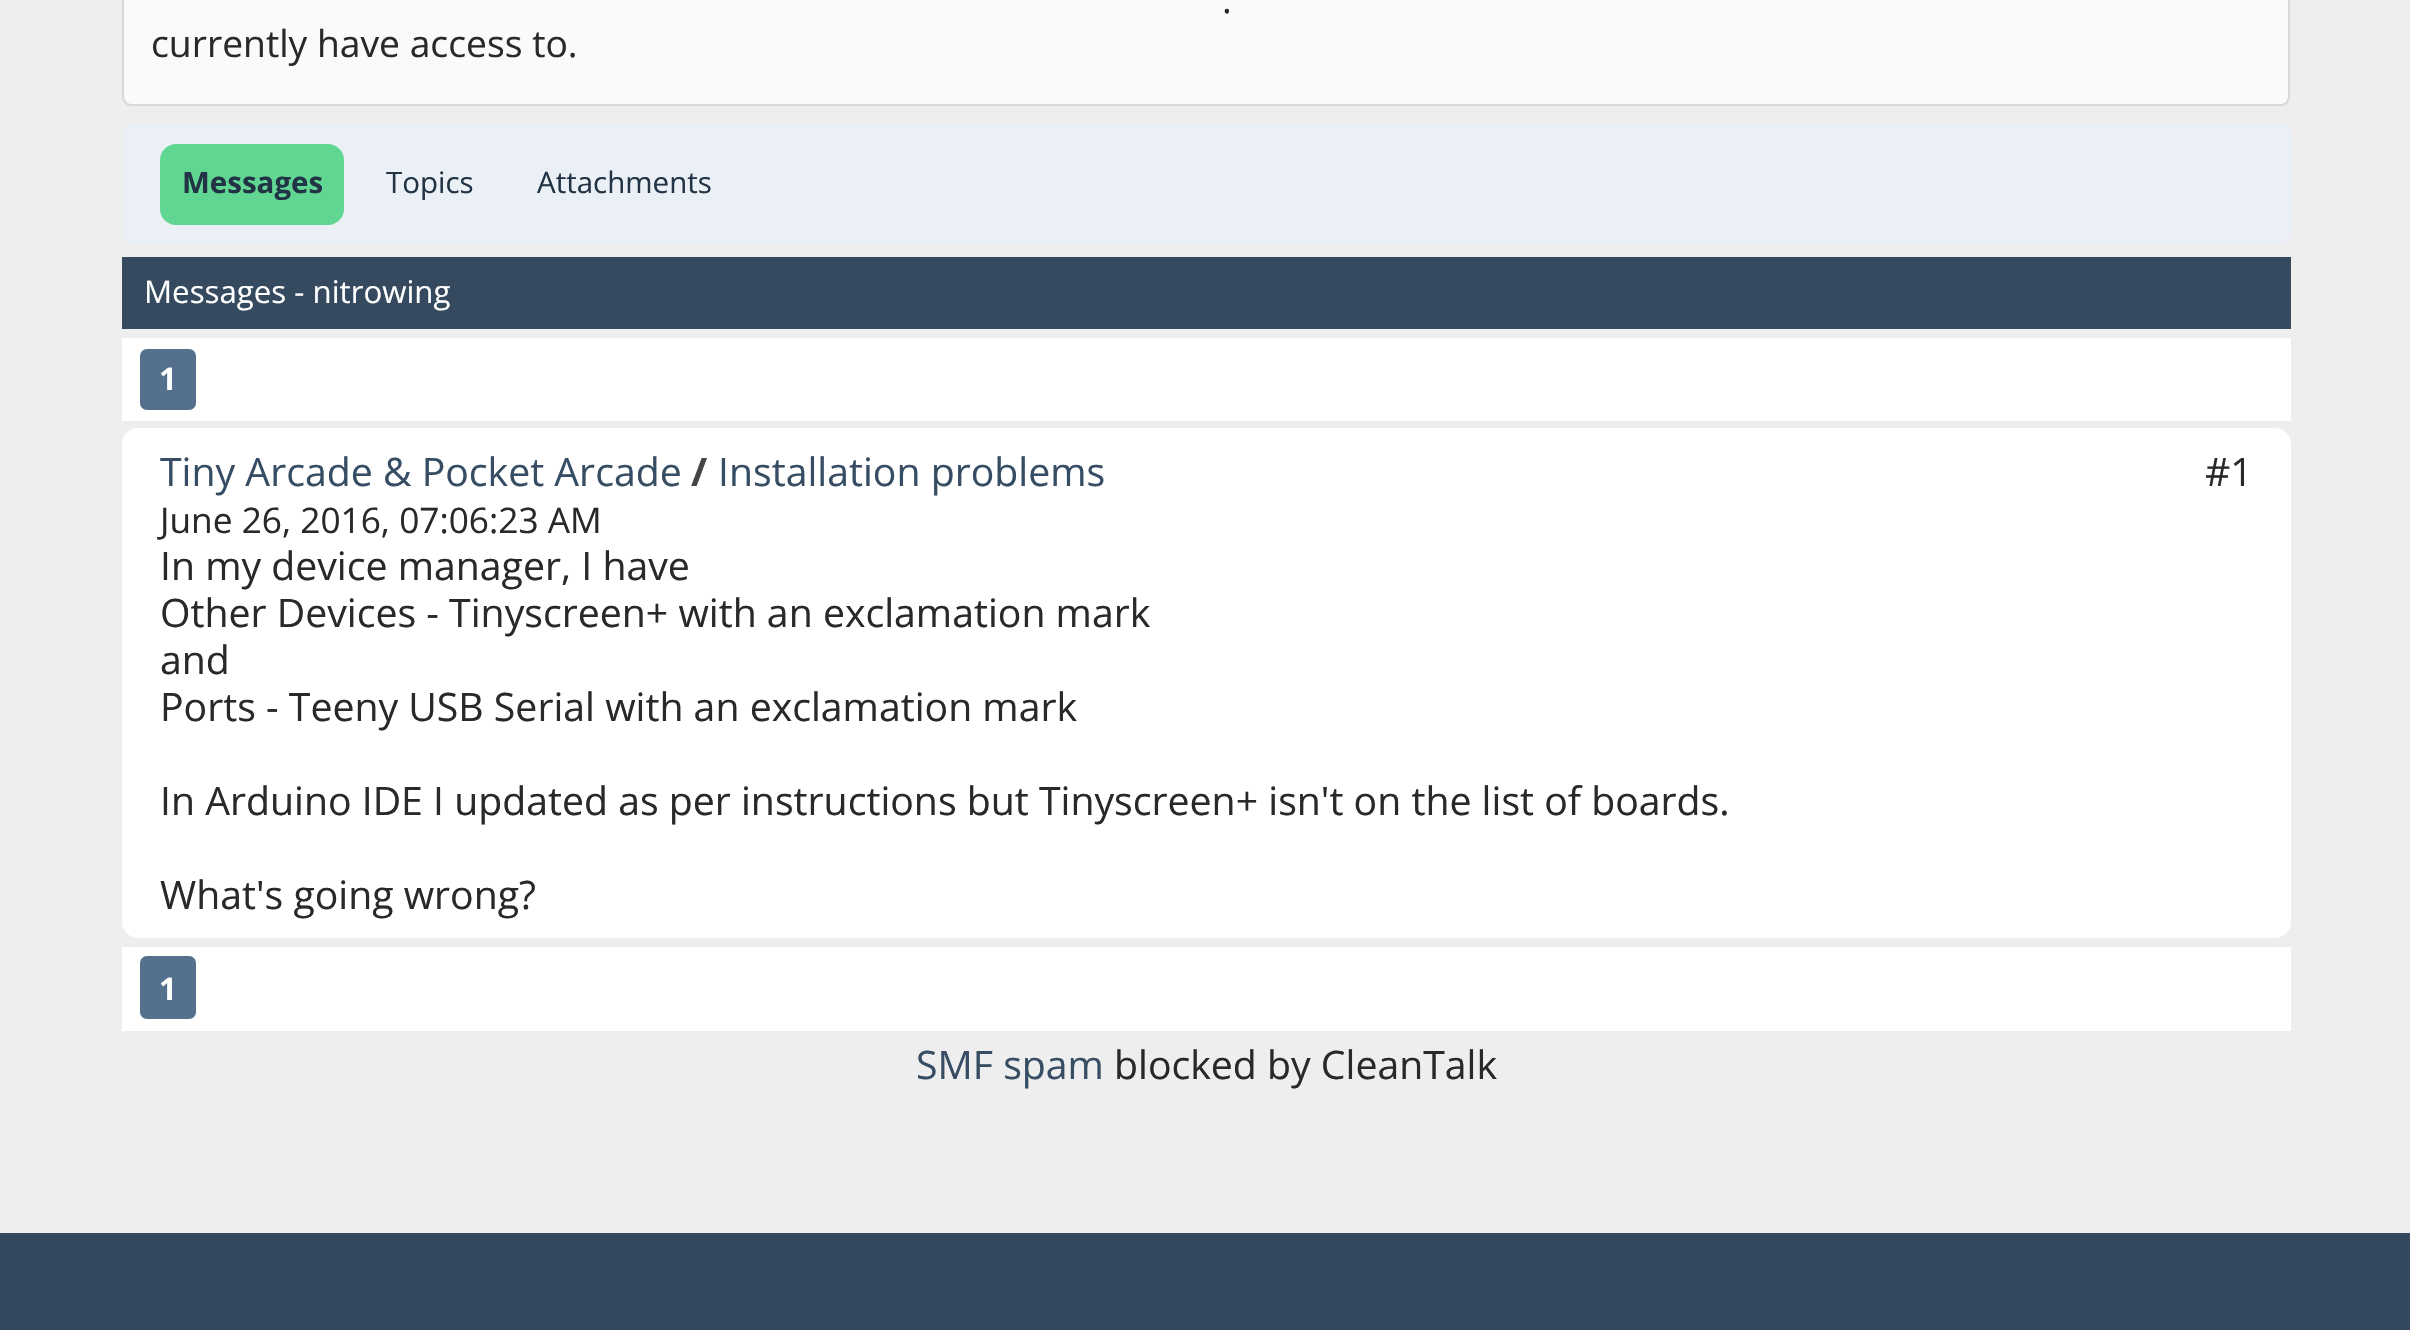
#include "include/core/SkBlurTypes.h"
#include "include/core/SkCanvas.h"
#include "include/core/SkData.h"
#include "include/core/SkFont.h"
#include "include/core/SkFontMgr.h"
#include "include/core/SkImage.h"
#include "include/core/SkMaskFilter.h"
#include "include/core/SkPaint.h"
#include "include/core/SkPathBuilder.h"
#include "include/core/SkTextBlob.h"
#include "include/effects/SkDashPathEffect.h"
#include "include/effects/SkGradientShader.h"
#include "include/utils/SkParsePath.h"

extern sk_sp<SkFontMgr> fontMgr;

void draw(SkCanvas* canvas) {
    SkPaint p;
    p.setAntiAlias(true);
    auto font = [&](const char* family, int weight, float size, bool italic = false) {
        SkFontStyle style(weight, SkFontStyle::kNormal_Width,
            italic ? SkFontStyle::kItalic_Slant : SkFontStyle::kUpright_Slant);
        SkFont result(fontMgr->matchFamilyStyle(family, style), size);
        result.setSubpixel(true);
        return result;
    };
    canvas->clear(0xFFEEEEEE);
    p.setColor(0xFFFAFAFA);
    canvas->drawPath(SkPathBuilder().moveTo(124, -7).lineTo(2288, -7).lineTo(2288, 97).cubicTo(2288, 101, 2285, 104, 2281, 104).lineTo(131, 104).cubicTo(127, 104, 124, 101, 124, 97).close().detach(), p);
    p.setColor(0xFFD9D9D9);
    canvas->drawPath(SkPathBuilder(SkPathFillType::kEvenOdd).moveTo(122, -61).lineTo(2290, -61).lineTo(2290, 96).cubicTo(2290, 102, 2286, 106, 2281, 106).lineTo(131, 106).cubicTo(126, 106, 122, 102, 122, 96).close().moveTo(124, -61).lineTo(2288, -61).lineTo(2288, 96).cubicTo(2288, 100, 2285, 104, 2281, 104).lineTo(131, 104).cubicTo(127, 104, 124, 100, 124, 96).close().detach(), p);
    auto font1 = font("Open Sans", 400, 37.25f);
    p.setColor(0xFF292929);
    canvas->drawString(".", 1222, 13, font1, p);
    canvas->drawString("currently have access to.", 151, 57, font1, p);
    p.setColor(0xFFEAF0F5);
    canvas->drawRoundRect(SkRect::MakeLTRB(122, 124, 2291, 243), 9, 9, p);
    p.setColor(0xFF61D692);
    canvas->drawRoundRect(SkRect::MakeLTRB(160, 144, 344, 225), 16, 16, p);
    auto font2 = font("Open Sans", 700, 29.5f);
    p.setColor(0xFF213345);
    canvas->drawString("Messages", 182, 193, font2, p);
    auto font3 = font("Open Sans", 400, 29.5f);
    canvas->drawString("Topics", 386, 193, font3, p);
    canvas->drawString("Attachments", 537, 193, font3, p);
    p.setColor(0xFF354A5F);
    canvas->drawRect(SkRect::MakeLTRB(122, 257, 2291, 329), p);
    auto font4 = font("Open Sans", 400, 31.25f);
    p.setColor(0xFFFFFFFF);
    canvas->drawString("Messages - nitrowing", 144, 303, font4, p);
    canvas->drawRect(SkRect::MakeLTRB(122, 338, 2291, 421), p);
    p.setColor(0xFF54708C);
    canvas->drawRoundRect(SkRect::MakeLTRB(140, 349, 196, 410), 7, 7, p);
    auto font5 = font("Open Sans", 700, 31.25f);
    p.setColor(0xFFFFFFFF);
    canvas->drawString("1", 159, 390, font5, p);
    canvas->drawRoundRect(SkRect::MakeLTRB(122, 428, 2291, 938), 16, 16, p);
    auto font6 = font("Open Sans", 400, 39.2f);
    p.setColor(0xFF364D63);
    canvas->drawString("Tiny Arcade & Pocket Arcade", 160, 486, font6, p);
    auto font7 = font("Open Sans", 700, 39.2f);
    p.setColor(0xFF454545);
    canvas->drawString("/", 691, 486, font7, p);
    p.setColor(0xFF364D63);
    canvas->drawString("Installation problems", 718, 486, font6, p);
    auto font8 = font("Open Sans", 400, 35.25f);
    p.setColor(0xFF292929);
    canvas->drawString("June 26, 2016, 07:06:23 AM", 160, 533, font8, p);
    {
        const struct { const char* s; float x, y; } items[] = {
            {"#1", 2205, 486},
            {"In my device manager, I have", 160, 580},
            {"Other Devices - Tinyscreen+ with an exclamation mark", 160, 627},
            {"and", 160, 674},
            {"Ports - Teeny USB Serial with an exclamation mark", 160, 721},
            {"In Arduino IDE I updated as per instructions but Tinyscreen+ isn't on the list of boards.", 160, 815},
            {"What's going wrong?", 160, 909},
        };
        for (auto [s, x, y] : items) {
            canvas->drawString(s, x, y, font6, p);
        }
    }
    p.setColor(0xFFFFFFFF);
    canvas->drawRect(SkRect::MakeLTRB(122, 947, 2291, 1031), p);
    p.setColor(0xFF54708C);
    canvas->drawRoundRect(SkRect::MakeLTRB(140, 956, 196, 1019), 7, 7, p);
    p.setColor(0xFFFFFFFF);
    canvas->drawString("1", 159, 1000, font5, p);
    p.setColor(0xFF364D63);
    canvas->drawString("SMF spam", 916, 1079, font6, p);
    p.setColor(0xFF292929);
    canvas->drawString("blocked by CleanTalk", 1114, 1079, font6, p);
    p.setColor(0xFF34495E);
    canvas->drawRect(SkRect::MakeLTRB(0, 1233, 2410, 1330), p);
}
